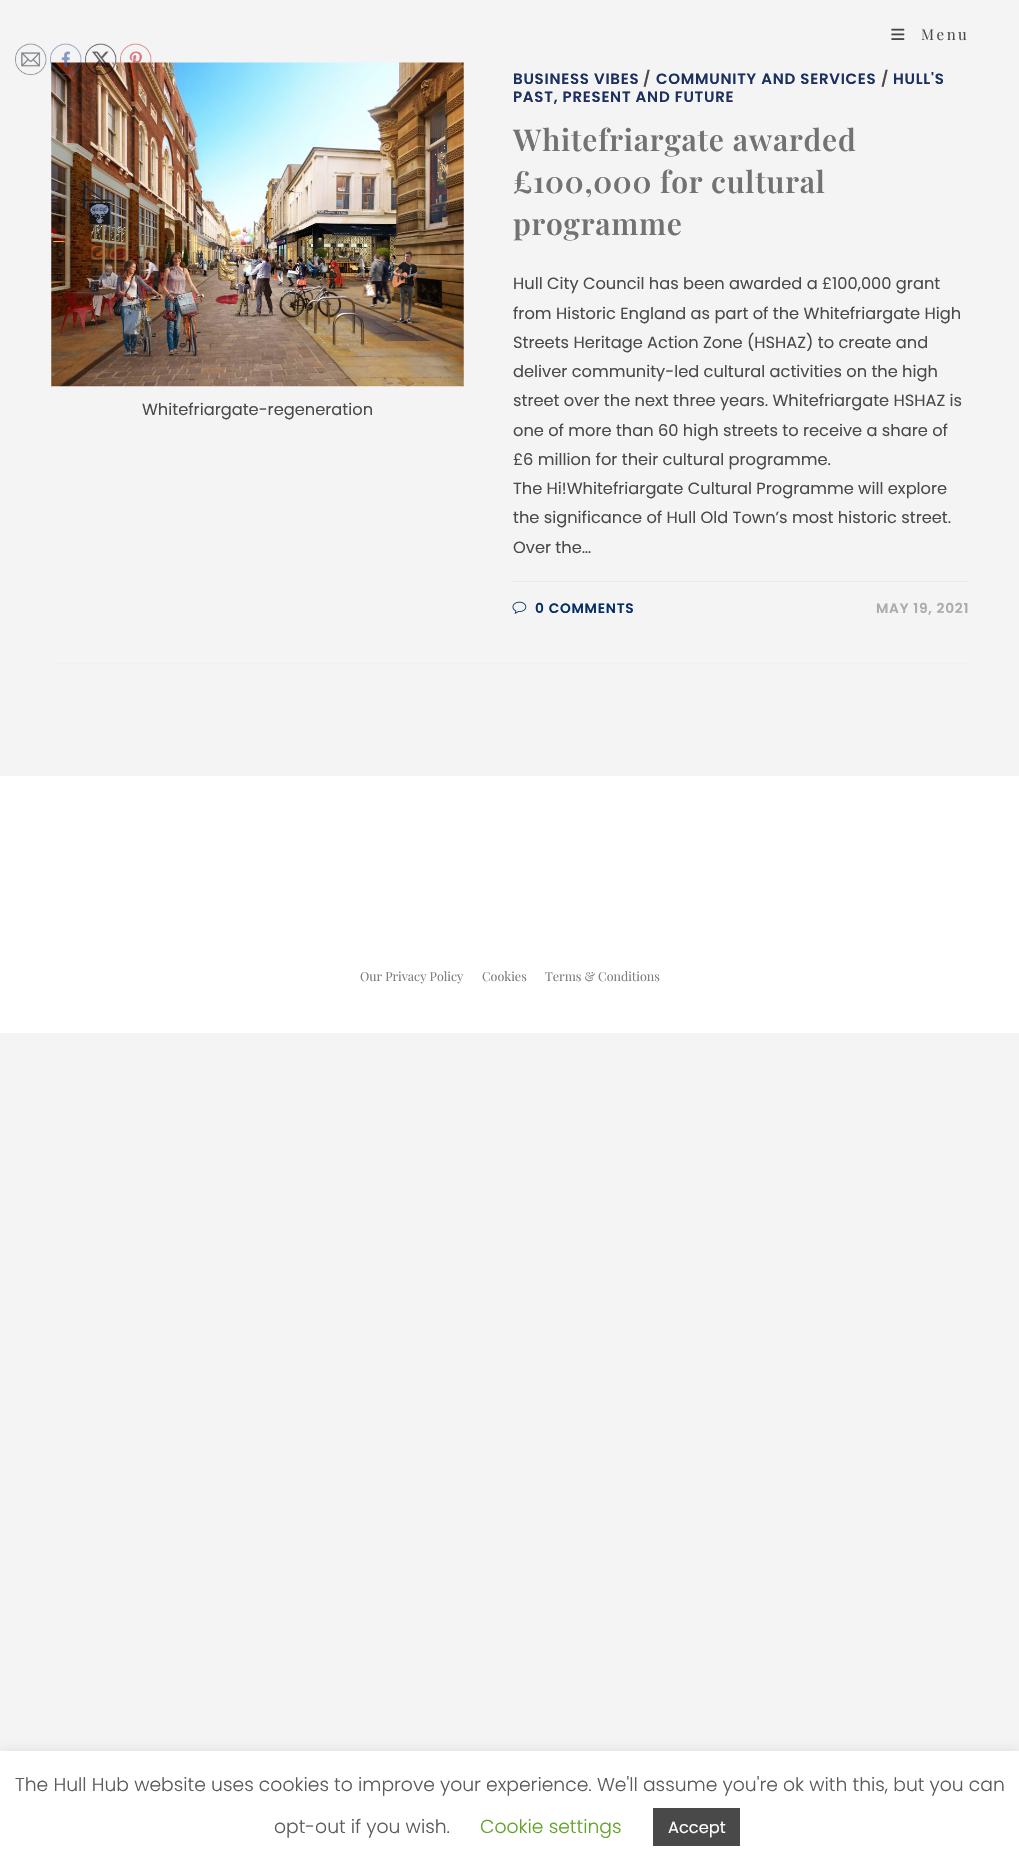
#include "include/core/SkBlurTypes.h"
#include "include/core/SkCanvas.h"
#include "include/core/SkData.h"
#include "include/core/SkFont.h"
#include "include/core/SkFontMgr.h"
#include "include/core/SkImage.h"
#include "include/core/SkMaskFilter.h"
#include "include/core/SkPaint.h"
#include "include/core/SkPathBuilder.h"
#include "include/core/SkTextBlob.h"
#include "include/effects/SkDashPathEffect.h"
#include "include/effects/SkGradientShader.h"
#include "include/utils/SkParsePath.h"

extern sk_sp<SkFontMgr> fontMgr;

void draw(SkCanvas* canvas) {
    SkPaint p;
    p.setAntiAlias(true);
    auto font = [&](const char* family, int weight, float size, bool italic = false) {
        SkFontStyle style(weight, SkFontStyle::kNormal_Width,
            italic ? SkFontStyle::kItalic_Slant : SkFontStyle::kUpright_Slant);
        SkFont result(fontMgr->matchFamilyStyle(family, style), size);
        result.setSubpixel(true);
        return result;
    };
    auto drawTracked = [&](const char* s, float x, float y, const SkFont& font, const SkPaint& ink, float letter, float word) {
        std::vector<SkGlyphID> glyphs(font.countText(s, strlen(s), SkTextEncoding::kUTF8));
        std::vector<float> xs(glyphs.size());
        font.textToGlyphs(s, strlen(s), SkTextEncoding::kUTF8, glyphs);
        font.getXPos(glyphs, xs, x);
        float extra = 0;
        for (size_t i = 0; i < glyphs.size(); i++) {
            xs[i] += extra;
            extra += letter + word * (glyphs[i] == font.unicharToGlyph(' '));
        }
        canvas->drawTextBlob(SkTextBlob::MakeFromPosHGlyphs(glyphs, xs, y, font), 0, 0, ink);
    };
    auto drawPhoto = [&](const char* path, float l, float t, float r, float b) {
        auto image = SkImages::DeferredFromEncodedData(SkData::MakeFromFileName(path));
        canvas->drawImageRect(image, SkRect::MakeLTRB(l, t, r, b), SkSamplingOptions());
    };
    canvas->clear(0xFFF4F4F4);
    drawPhoto("media/1.png", 15, 43, 47, 75);
    drawPhoto("media/6.png", 51, 62, 464, 387);
    drawPhoto("media/2.png", 50, 43, 82, 75);
    drawPhoto("media/3.png", 85, 43, 117, 75);
    drawPhoto("media/4.png", 120, 43, 152, 75);
    drawPhoto("media/5.png", 891, 28, 905, 40);
    auto font1 = font("Playfair Display", 400, 15);
    p.setColor(0xFF4A4A4A);
    drawTracked("Menu", 921, 40, font1, p, 2.5f, 0);
    p.setColor(0xFFF1F1F1);
    canvas->drawRect(SkRect::MakeLTRB(51, 663, 969, 664), p);
    auto font2 = font("Poppins", 400, 16.25f);
    p.setColor(0xFF4A4A4A);
    canvas->drawString("Whitefriargate-regeneration", 142, 415, font2, p);
    auto font3 = font("Poppins", 600, 15);
    p.setColor(0xFF1C3060);
    drawTracked("BUSINESS VIBES", 513, 84, font3, p, 0.75f, 0);
    p.setColor(0xFF4A4A4A);
    drawTracked("/", 643, 84, font3, p, 0.75f, 0);
    p.setColor(0xFF1C3060);
    drawTracked("COMMUNITY AND SERVICES", 656, 84, font3, p, 0.75f, 0);
    p.setColor(0xFF4A4A4A);
    drawTracked("/", 881, 84, font3, p, 0.75f, 0);
    p.setColor(0xFF1C3060);
    drawTracked("HULL'S", 893, 84, font3, p, 0.75f, 0);
    drawTracked("PAST, PRESENT AND FUTURE", 513, 102, font3, p, 0.75f, 0);
    auto font4 = font("Playfair Display", 600, 30);
    p.setColor(0xFF727272);
    {
        const struct { const char* s; float x, y; } items[] = {
            {"Whitefriargate awarded", 513, 151},
            {"£100,000 for cultural", 513, 193},
            {"programme", 513, 235},
        };
        for (auto [s, x, y] : items) {
            drawTracked(s, x, y, font4, p, 0.75f, 0);
        }
    }
    p.setColor(0xFF4A4A4A);
    {
        const struct { const char* s; float x, y; } items[] = {
            {"Hull City Council has been awarded a £100,000 grant", 513, 289},
            {"from Historic England as part of the Whitefriargate High", 513, 319},
            {"Streets Heritage Action Zone (HSHAZ) to create and", 513, 348},
            {"deliver community-led cultural activities on the high", 513, 377},
            {"street over the next three years. Whitefriargate HSHAZ is", 513, 406},
            {"one of more than 60 high streets to receive a share of", 513, 436},
            {"£6 million for their cultural programme.", 513, 465},
            {"The Hi!Whitefriargate Cultural Programme will explore", 513, 494},
            {"the significance of Hull Old Town’s most historic street.", 513, 523},
            {"Over the…", 513, 553},
        };
        for (auto [s, x, y] : items) {
            canvas->drawString(s, x, y, font2, p);
        }
    }
    p.setColor(0xFFE9E9E9);
    canvas->drawRect(SkRect::MakeLTRB(513, 581, 969, 582), p);
    drawPhoto("media/7.png", 512, 601, 527, 614);
    auto font5 = font("Poppins", 600, 13.75f);
    p.setColor(0xFF042E66);
    drawTracked("0 COMMENTS", 535, 613, font5, p, 0.75f, 0);
    p.setColor(0xFFABABAB);
    drawTracked("MAY 19, 2021", 876, 613, font5, p, 0.75f, 0);
    p.setColor(0xFFFFFFFF);
    canvas->drawRect(SkRect::MakeLTRB(0, 776, 1019, 1033), p);
    auto font6 = font("Playfair Display", 400, 12.5f);
    p.setColor(0xFF7C7C7C);
    {
        const struct { const char* s; float x, y; } items[] = {
            {"Our Privacy Policy", 360, 981},
            {"Cookies", 482, 981},
            {"Terms & Conditions", 545, 981},
        };
        for (auto [s, x, y] : items) {
            canvas->drawString(s, x, y, font6, p);
        }
    }
    p.setColor(0x4DACABAB);
    p.setMaskFilter(SkMaskFilter::MakeBlur(kNormal_SkBlurStyle, 6));
    canvas->drawRect(SkRect::MakeLTRB(0, 1750, 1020, 1866), p);
    p.setMaskFilter(nullptr);
    p.setColor(0xFFFFFFFF);
    canvas->drawRect(SkRect::MakeLTRB(0, 1751, 1019, 1867), p);
    auto font7 = font("Poppins", 300, 18.75f);
    p.setColor(0xFF5B5B5B);
    canvas->drawString("The Hull Hub website uses cookies to improve your experience. We'll assume you're ok with this, but you can", 15, 1791, font7, p);
    canvas->drawString("opt-out if you wish.", 274, 1833, font7, p);
    p.setColor(0xFF62A329);
    canvas->drawString("Cookie settings", 480, 1833, font7, p);
    p.setColor(0xFF494949);
    canvas->drawRect(SkRect::MakeLTRB(653, 1808, 740, 1846), p);
    p.setColor(0xFFFFFFFF);
    canvas->drawString("Accept", 668, 1833, font2, p);
}
